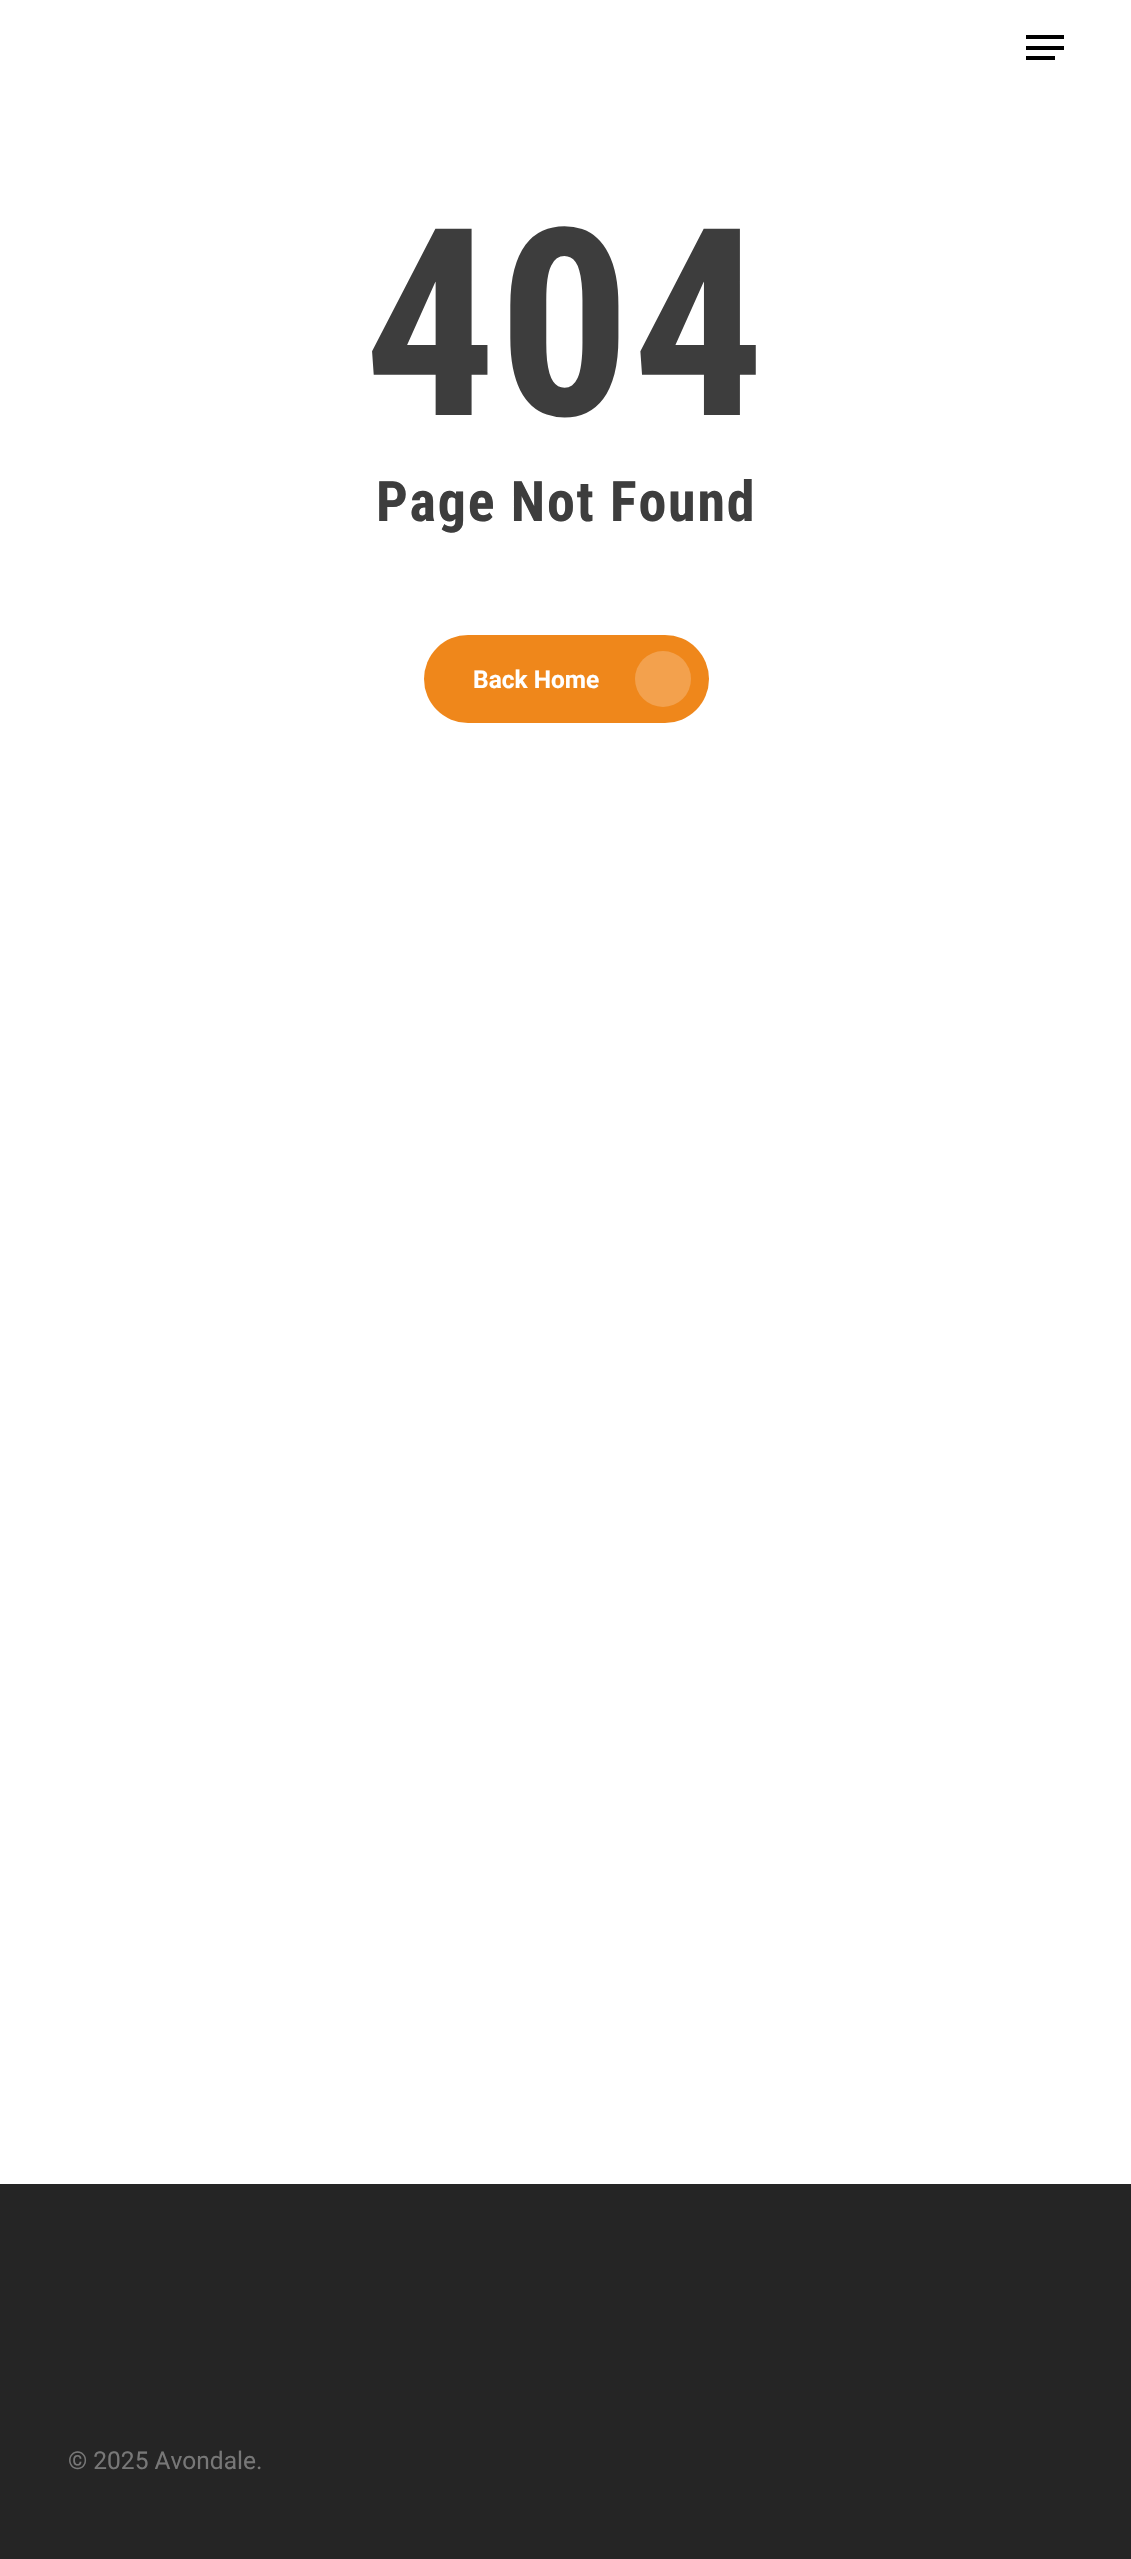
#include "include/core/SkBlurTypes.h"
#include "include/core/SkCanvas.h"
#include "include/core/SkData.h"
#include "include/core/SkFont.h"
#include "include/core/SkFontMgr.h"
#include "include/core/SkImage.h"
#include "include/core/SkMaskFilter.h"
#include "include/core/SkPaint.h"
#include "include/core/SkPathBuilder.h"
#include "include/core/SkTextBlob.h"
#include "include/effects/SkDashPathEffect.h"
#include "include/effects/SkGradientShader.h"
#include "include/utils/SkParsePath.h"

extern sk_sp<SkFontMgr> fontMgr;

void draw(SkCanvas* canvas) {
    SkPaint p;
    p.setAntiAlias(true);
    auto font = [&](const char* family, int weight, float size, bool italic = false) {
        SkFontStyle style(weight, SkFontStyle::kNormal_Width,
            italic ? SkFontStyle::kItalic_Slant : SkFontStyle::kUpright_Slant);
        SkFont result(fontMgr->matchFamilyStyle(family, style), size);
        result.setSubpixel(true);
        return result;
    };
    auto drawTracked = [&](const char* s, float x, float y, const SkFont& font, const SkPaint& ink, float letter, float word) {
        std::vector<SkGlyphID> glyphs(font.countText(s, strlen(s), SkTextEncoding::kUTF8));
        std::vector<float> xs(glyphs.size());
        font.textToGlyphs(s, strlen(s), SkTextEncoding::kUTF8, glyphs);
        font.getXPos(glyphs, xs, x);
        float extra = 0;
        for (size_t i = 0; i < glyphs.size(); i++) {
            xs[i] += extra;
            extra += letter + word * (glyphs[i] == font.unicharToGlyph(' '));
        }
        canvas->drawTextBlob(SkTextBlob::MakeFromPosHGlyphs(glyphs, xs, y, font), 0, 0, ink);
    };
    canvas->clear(0xFFFFFFFF);
    {
        const struct { float l, t, r, b; SkColor color; } items[] = {
            {1026, 35, 1064, 39, 0xFF000000},
            {1026, 56, 1055, 60, 0xFF000000},
            {1026, 46, 1064, 50, 0xFF000000},
        };
        for (auto [l, t, r, b, color] : items) {
            p.setColor(color);
            canvas->drawRect(SkRect::MakeLTRB(l, t, r, b), p);
        }
    }
    auto font1 = font("Roboto Condensed", 700, 262);
    p.setColor(0xFF3D3D3D);
    drawTracked("404", 364, 415, font1, p, 1.75f, 0);
    auto font2 = font("Roboto Condensed", 700, 56);
    drawTracked("Page Not Found", 376, 521, font2, p, 1.75f, 0);
    p.setColor(0xFFEF871B);
    canvas->drawRoundRect(SkRect::MakeLTRB(424, 635, 709, 723), 44, 44, p);
    auto font3 = font("Roboto", 700, 24.5f);
    p.setColor(0xFFFFFFFF);
    canvas->drawString("Back Home", 473, 688, font3, p);
    p.setColor(0xFFF3A14D);
    canvas->drawCircle(663, 679, 28, p);
    p.setColor(0xFF252525);
    canvas->drawRect(SkRect::MakeLTRB(0, 2184, 1131, 2559), p);
    auto font4 = font("Roboto", 400, 24.5f);
    p.setColor(0xFF777777);
    canvas->drawString("© 2025 Avondale.", 68, 2469, font4, p);
}
